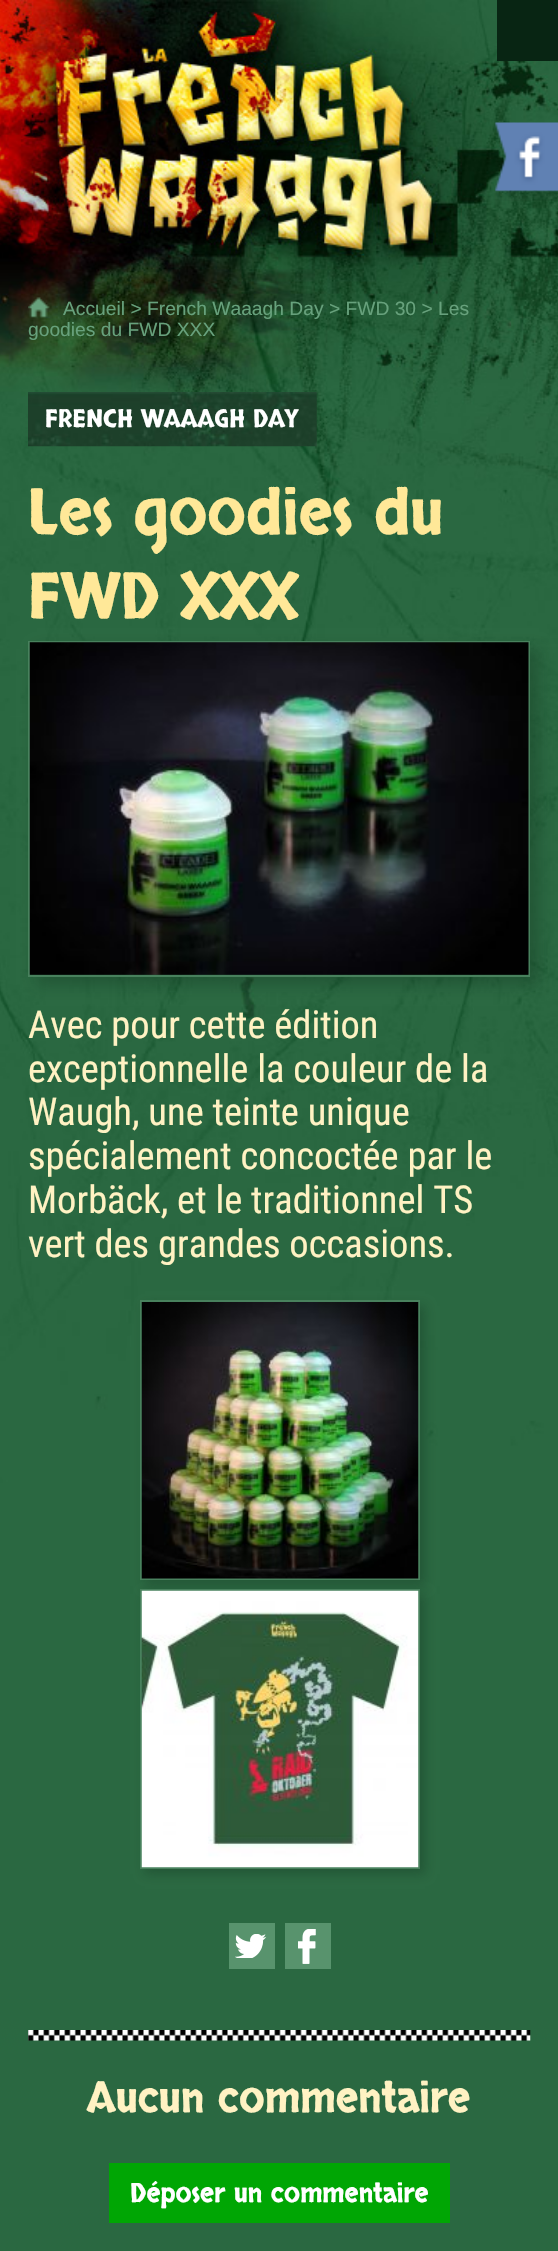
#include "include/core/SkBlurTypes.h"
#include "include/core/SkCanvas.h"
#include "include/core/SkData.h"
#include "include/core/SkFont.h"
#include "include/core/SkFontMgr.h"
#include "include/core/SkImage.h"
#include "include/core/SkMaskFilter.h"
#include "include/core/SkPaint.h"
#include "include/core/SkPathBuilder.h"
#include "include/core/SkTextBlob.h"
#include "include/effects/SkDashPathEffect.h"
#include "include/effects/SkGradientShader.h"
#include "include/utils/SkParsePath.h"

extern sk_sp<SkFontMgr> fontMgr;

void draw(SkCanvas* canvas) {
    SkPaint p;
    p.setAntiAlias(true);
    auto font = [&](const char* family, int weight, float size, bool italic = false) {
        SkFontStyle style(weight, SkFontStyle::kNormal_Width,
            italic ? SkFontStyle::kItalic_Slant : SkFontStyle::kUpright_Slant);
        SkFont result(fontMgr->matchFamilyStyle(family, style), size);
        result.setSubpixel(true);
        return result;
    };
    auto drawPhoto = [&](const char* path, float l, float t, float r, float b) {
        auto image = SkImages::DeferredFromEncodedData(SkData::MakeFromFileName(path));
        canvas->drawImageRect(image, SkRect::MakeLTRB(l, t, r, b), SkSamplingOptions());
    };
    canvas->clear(0xFF2A6841);
    drawPhoto("media/1.png", 0, 0, 558, 1521);
    p.setColor(0xFF082513);
    canvas->drawRect(SkRect::MakeLTRB(497, 0, 558, 61), p);
    drawPhoto("media/2.png", 494, 122, 558, 201);
    drawPhoto("media/3.png", 28, 297, 50, 318);
    auto font1 = font("Liberation Sans", 400, 19.25f);
    p.setColor(0xFF67A17C);
    canvas->drawString("Accueil > French Waaagh Day > FWD 30 > Les", 63, 315, font1, p);
    canvas->drawString("goodies du FWD XXX", 28, 336, font1, p);
    drawPhoto("media/4.png", 28, 392, 317, 447);
    auto font2 = font("Skranji", 400, 24.5f);
    p.setColor(0xFFFFFFFF);
    canvas->drawString("FRENCH WAAAGH DAY", 45, 427, font2, p);
    auto font3 = font("Skranji", 400, 63);
    p.setColor(0xFFFFE898);
    canvas->drawString("Les goodies du", 28, 534, font3, p);
    canvas->drawString("FWD XXX", 28, 618, font3, p);
    p.setColor(0x4A0F2B19);
    p.setMaskFilter(SkMaskFilter::MakeBlur(kNormal_SkBlurStyle, 7));
    canvas->drawRect(SkRect::MakeLTRB(37, 649, 539, 985), p);
    p.setMaskFilter(nullptr);
    p.setStyle(SkPaint::kStroke_Style);
    p.setStrokeWidth(2);
    p.setColor(0xFF48815D);
    canvas->drawRect(SkRect::MakeLTRB(29, 642, 529, 976), p);
    drawPhoto("media/5.png", 29, 642, 529, 975);
    auto font4 = font("Roboto Condensed", 400, 38.5f);
    p.setStyle(SkPaint::kFill_Style);
    p.setColor(0xFFFFF2C3);
    {
        const struct { const char* s; float x, y; } items[] = {
            {"Avec pour cette édition", 28, 1038},
            {"exceptionnelle la couleur de la", 28, 1082},
            {"Waugh, une teinte unique", 28, 1125},
            {"spécialement concoctée par le", 28, 1169},
            {"Morbäck, et le traditionnel TS", 28, 1213},
            {"vert des grandes occasions.", 28, 1257},
        };
        for (auto [s, x, y] : items) {
            canvas->drawString(s, x, y, font4, p);
        }
    }
    p.setColor(0x4A0F2B19);
    p.setMaskFilter(SkMaskFilter::MakeBlur(kNormal_SkBlurStyle, 5));
    canvas->drawRect(SkRect::MakeLTRB(145, 1306, 425, 1586), p);
    p.setMaskFilter(nullptr);
    p.setStyle(SkPaint::kStroke_Style);
    p.setColor(0xFF48815D);
    canvas->drawRect(SkRect::MakeLTRB(141, 1301, 419, 1579), p);
    drawPhoto("media/6.png", 141, 1302, 419, 1579);
    p.setStyle(SkPaint::kFill_Style);
    p.setColor(0x4A0F2B19);
    p.setMaskFilter(SkMaskFilter::MakeBlur(kNormal_SkBlurStyle, 5));
    canvas->drawRect(SkRect::MakeLTRB(145, 1594, 425, 1874), p);
    p.setMaskFilter(nullptr);
    p.setStyle(SkPaint::kStroke_Style);
    p.setColor(0xFF48815D);
    canvas->drawRect(SkRect::MakeLTRB(141, 1590, 419, 1868), p);
    drawPhoto("media/7.png", 141, 1590, 419, 1868);
    p.setStyle(SkPaint::kFill_Style);
    p.setColor(0xFF58936D);
    canvas->drawRect(SkRect::MakeLTRB(229, 1923, 275, 1969), p);
    drawPhoto("media/8.png", 235, 1934, 267, 1958);
    canvas->drawRect(SkRect::MakeLTRB(285, 1923, 331, 1969), p);
    drawPhoto("media/9.png", 298, 1929, 316, 1964);
    drawPhoto("media/10.png", 28, 2030, 531, 2041);
    auto font5 = font("Skranji", 400, 42);
    p.setColor(0xFFFFF2C3);
    canvas->drawString("Aucun commentaire", 87, 2112, font5, p);
    p.setColor(0xFF00A604);
    canvas->drawRect(SkRect::MakeLTRB(109, 2163, 450, 2223), p);
    auto font6 = font("Skranji", 400, 26.25f);
    p.setColor(0xFFFFFFFF);
    canvas->drawString("Déposer un commentaire", 130, 2202, font6, p);
}
